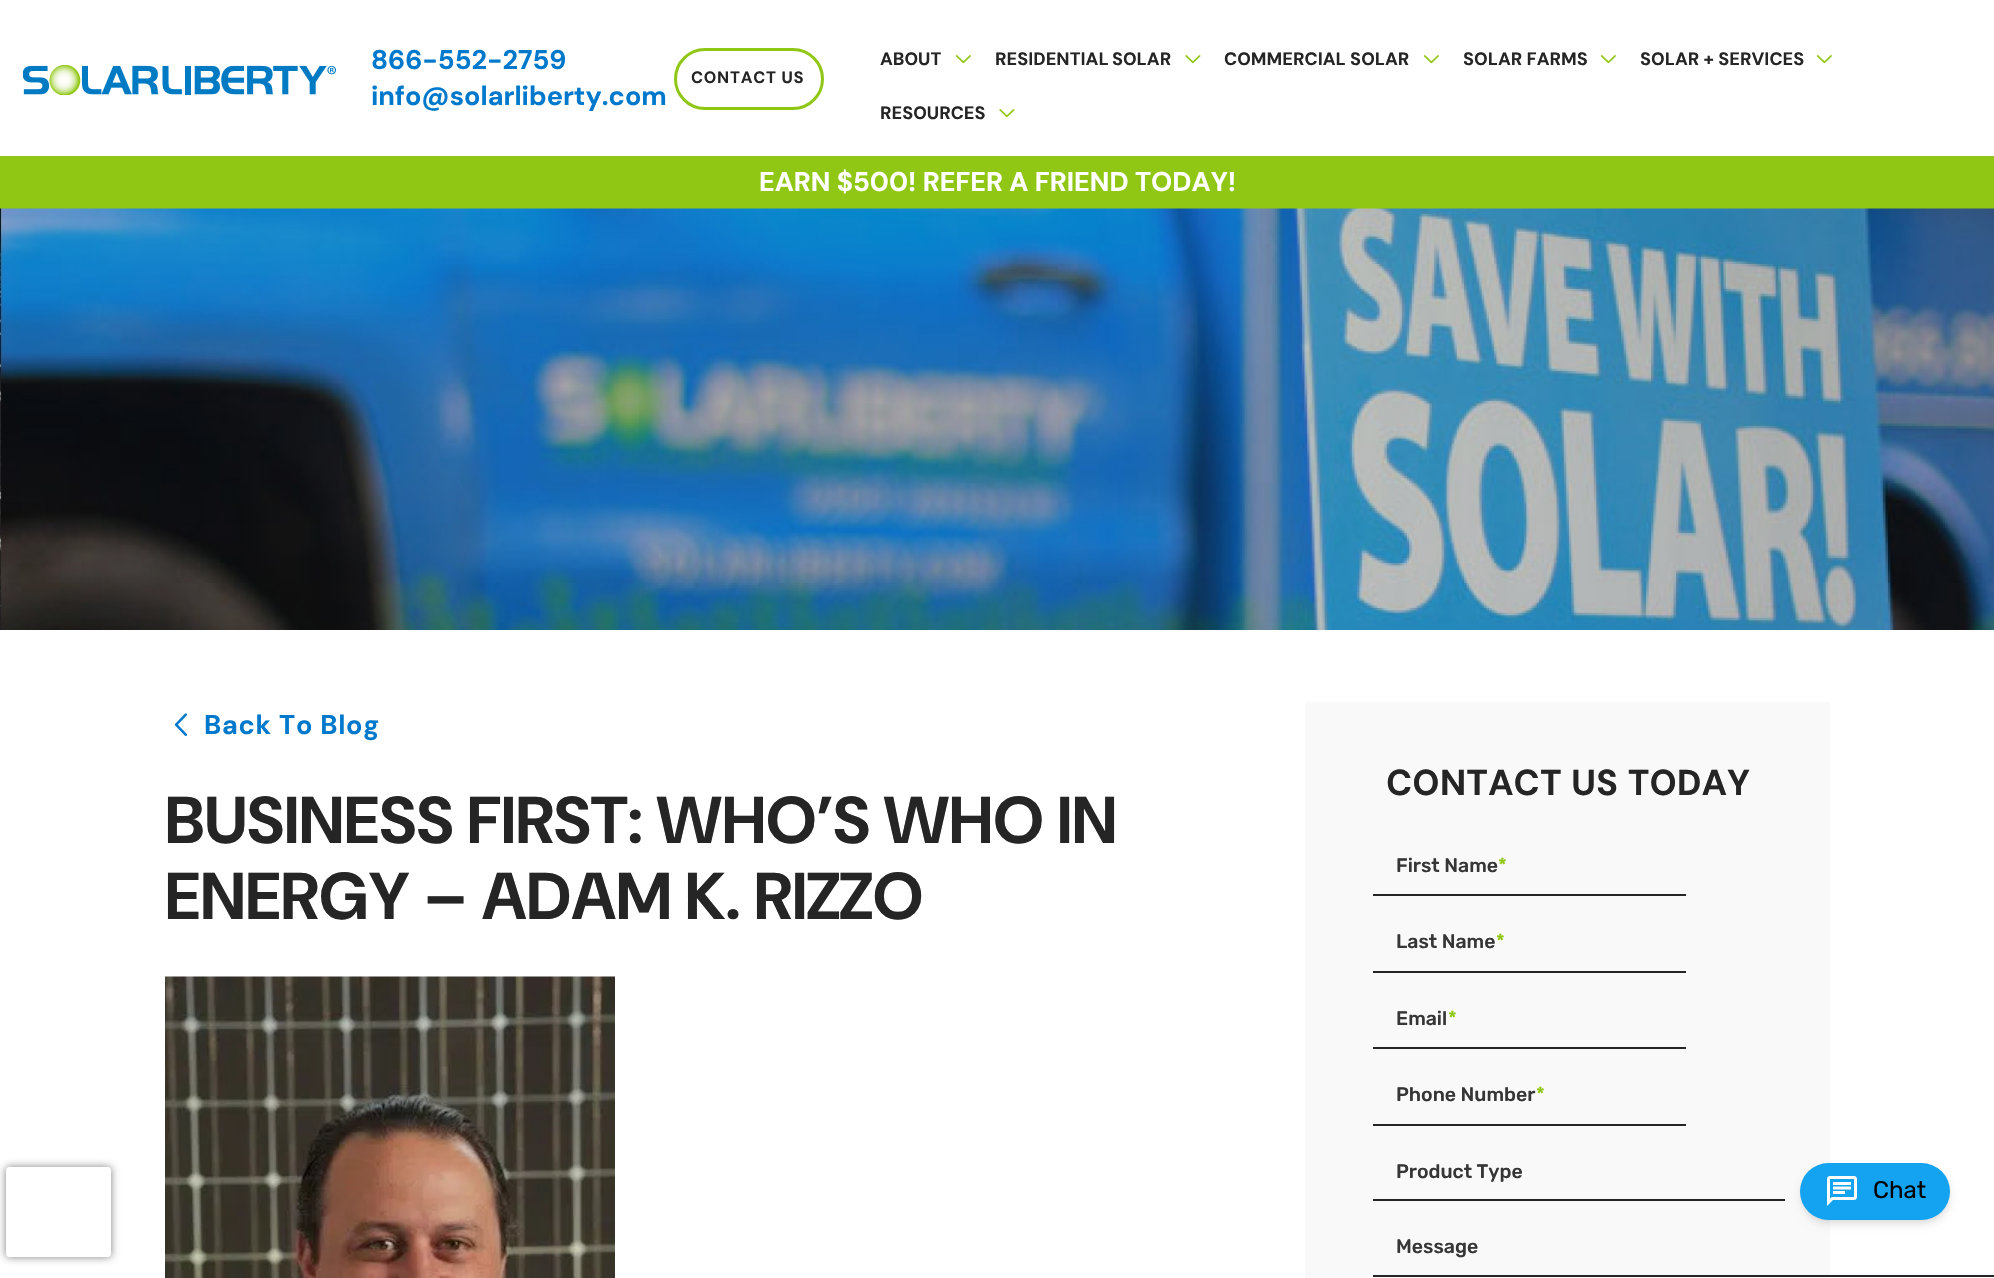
#include "include/core/SkBlurTypes.h"
#include "include/core/SkCanvas.h"
#include "include/core/SkData.h"
#include "include/core/SkFont.h"
#include "include/core/SkFontMgr.h"
#include "include/core/SkImage.h"
#include "include/core/SkMaskFilter.h"
#include "include/core/SkPaint.h"
#include "include/core/SkPathBuilder.h"
#include "include/core/SkTextBlob.h"
#include "include/effects/SkDashPathEffect.h"
#include "include/effects/SkGradientShader.h"
#include "include/utils/SkParsePath.h"

extern sk_sp<SkFontMgr> fontMgr;

void draw(SkCanvas* canvas) {
    SkPaint p;
    p.setAntiAlias(true);
    auto font = [&](const char* family, int weight, float size, bool italic = false) {
        SkFontStyle style(weight, SkFontStyle::kNormal_Width,
            italic ? SkFontStyle::kItalic_Slant : SkFontStyle::kUpright_Slant);
        SkFont result(fontMgr->matchFamilyStyle(family, style), size);
        result.setSubpixel(true);
        return result;
    };
    auto drawTracked = [&](const char* s, float x, float y, const SkFont& font, const SkPaint& ink, float letter, float word) {
        std::vector<SkGlyphID> glyphs(font.countText(s, strlen(s), SkTextEncoding::kUTF8));
        std::vector<float> xs(glyphs.size());
        font.textToGlyphs(s, strlen(s), SkTextEncoding::kUTF8, glyphs);
        font.getXPos(glyphs, xs, x);
        float extra = 0;
        for (size_t i = 0; i < glyphs.size(); i++) {
            xs[i] += extra;
            extra += letter + word * (glyphs[i] == font.unicharToGlyph(' '));
        }
        canvas->drawTextBlob(SkTextBlob::MakeFromPosHGlyphs(glyphs, xs, y, font), 0, 0, ink);
    };
    auto drawPhoto = [&](const char* path, float l, float t, float r, float b) {
        auto image = SkImages::DeferredFromEncodedData(SkData::MakeFromFileName(path));
        canvas->drawImageRect(image, SkRect::MakeLTRB(l, t, r, b), SkSamplingOptions());
    };
    canvas->clear(0xFFFFFFFF);
    drawPhoto("media/1.png", 23, 65, 336, 95);
    auto font1 = font("DM Sans", 700, 27);
    p.setColor(0xFF0079CD);
    canvas->drawString("866-552-2759", 371, 69, font1, p);
    canvas->drawString("info@solarliberty.com", 371, 105, font1, p);
    p.setStyle(SkPaint::kStroke_Style);
    p.setStrokeWidth(3);
    p.setColor(0xFF90C715);
    canvas->drawRoundRect(SkRect::MakeLTRB(675.5f, 49.5f, 822.5f, 108.5f), 29.5f, 29.5f, p);
    auto font2 = font("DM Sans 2", 700, 16.5f);
    p.setStyle(SkPaint::kFill_Style);
    p.setColor(0xFF262525);
    drawTracked("CONTACT US", 691, 83, font2, p, 0.75f, 0);
    auto font3 = font("DM Sans 2", 700, 18);
    canvas->drawString("ABOUT", 880, 65, font3, p);
    drawPhoto("media/2.png", 955, 55, 971, 64);
    drawTracked("RESIDENTIAL SOLAR", 995, 65, font3, p, 0, -1);
    drawPhoto("media/3.png", 1185, 55, 1201, 64);
    canvas->drawString("COMMERCIAL SOLAR", 1224, 65, font3, p);
    drawPhoto("media/2.png", 1423, 55, 1439, 64);
    canvas->drawString("SOLAR FARMS", 1463, 65, font3, p);
    drawPhoto("media/2.png", 1600, 55, 1616, 64);
    canvas->drawString("SOLAR + SERVICES", 1640, 65, font3, p);
    drawPhoto("media/2.png", 1816, 55, 1832, 64);
    canvas->drawString("RESOURCES", 880, 119, font3, p);
    drawPhoto("media/3.png", 999, 109, 1015, 118);
    p.setColor(0xFF90C715);
    canvas->drawRect(SkRect::MakeLTRB(0, 156, 1994, 209), p);
    p.setColor(0xFFFFFFFF);
    canvas->drawString("EARN $500! REFER A FRIEND TODAY!", 759, 191, font1, p);
    canvas->save();
    canvas->clipPath(SkPathBuilder(SkPathFillType::kEvenOdd).moveTo(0, 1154).lineTo(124, 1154).lineTo(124, 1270).lineTo(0, 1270).close().moveTo(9, 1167).lineTo(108, 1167).cubicTo(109.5f, 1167, 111, 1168.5f, 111, 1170).lineTo(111, 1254).cubicTo(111, 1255.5f, 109.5f, 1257, 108, 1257).lineTo(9, 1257).cubicTo(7.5f, 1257, 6, 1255.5f, 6, 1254).lineTo(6, 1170).cubicTo(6, 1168.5f, 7.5f, 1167, 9, 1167).close().detach(), true);
    p.setColor(0xFF808080);
    p.setMaskFilter(SkMaskFilter::MakeBlur(kNormal_SkBlurStyle, 4));
    canvas->drawRoundRect(SkRect::MakeLTRB(6, 1167, 111, 1257), 3, 3, p);
    p.setMaskFilter(nullptr);
    canvas->restore();
    drawPhoto("media/4.png", 0, 208, 1994, 630);
    drawPhoto("media/5.png", 174, 713, 187, 737);
    p.setColor(0xFF0079CD);
    drawTracked("Back To Blog", 204, 734, font1, p, 0.75f, 0);
    auto font4 = font("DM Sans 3", 700, 66);
    p.setColor(0xFF262525);
    canvas->drawString("BUSINESS FIRST: WHO’S WHO IN", 165, 843, font4, p);
    canvas->drawString("ENERGY – ADAM K. RIZZO", 165, 919, font4, p);
    drawPhoto("media/6.png", 165, 976, 615, 1278);
    p.setColor(0xFFF9F9F9);
    canvas->drawRect(SkRect::MakeLTRB(1305, 702, 1830, 1278), p);
    auto font5 = font("DM Sans 2", 700, 36);
    p.setColor(0xFF262525);
    drawTracked("CONTACT US TODAY", 1386, 795, font5, p, 0, 1);
    auto font6 = font("Rubik", 500, 19.5f);
    p.setColor(0xFF363636);
    canvas->drawString("First Name", 1396, 872, font6, p);
    p.setColor(0xFF90C715);
    canvas->drawString("*", 1498, 872, font6, p);
    p.setColor(0xFF262525);
    canvas->drawRect(SkRect::MakeLTRB(1373, 894, 1686, 896), p);
    p.setColor(0xFF363636);
    canvas->drawString("Last Name", 1396, 948, font6, p);
    p.setColor(0xFF90C715);
    canvas->drawString("*", 1496, 948, font6, p);
    p.setColor(0xFF262525);
    canvas->drawRect(SkRect::MakeLTRB(1373, 971, 1686, 973), p);
    p.setColor(0xFF363636);
    canvas->drawString("Email", 1396, 1025, font6, p);
    p.setColor(0xFF90C715);
    canvas->drawString("*", 1448, 1025, font6, p);
    p.setColor(0xFF262525);
    canvas->drawRect(SkRect::MakeLTRB(1373, 1047, 1686, 1049), p);
    p.setColor(0xFF363636);
    canvas->drawString("Phone Number", 1396, 1101, font6, p);
    p.setColor(0xFF90C715);
    canvas->drawString("*", 1536, 1101, font6, p);
    p.setColor(0xFF262525);
    canvas->drawRect(SkRect::MakeLTRB(1373, 1124, 1686, 1126), p);
    p.setColor(0xFF363636);
    canvas->drawString("Product Type", 1396, 1178, font6, p);
    p.setColor(0xFF262525);
    canvas->drawRect(SkRect::MakeLTRB(1373, 1199, 1785, 1201), p);
    p.setColor(0xFF363636);
    canvas->drawString("Message", 1396, 1253, font6, p);
    p.setColor(0xFF262525);
    canvas->drawRect(SkRect::MakeLTRB(1373, 1275, 1994, 1277), p);
    p.setColor(0x0F000000);
    p.setMaskFilter(SkMaskFilter::MakeBlur(kNormal_SkBlurStyle, 3));
    canvas->drawRoundRect(SkRect::MakeLTRB(1802, 1167, 1949, 1221), 27, 27, p);
    p.setMaskFilter(nullptr);
    p.setColor(0x1A000000);
    p.setMaskFilter(SkMaskFilter::MakeBlur(kNormal_SkBlurStyle, 4.5f));
    canvas->drawRoundRect(SkRect::MakeLTRB(1802, 1170, 1949, 1224), 27, 27, p);
    p.setMaskFilter(nullptr);
    p.setColor(0xFF13A3F0);
    canvas->drawRoundRect(SkRect::MakeLTRB(1800, 1163, 1950, 1220), 28.5f, 28.5f, p);
    drawPhoto("media/7.png", 1827, 1176, 1857, 1206);
    auto font7 = font("Rubik", 400, 24);
    p.setColor(0xFF000000);
    canvas->drawString("Chat", 1873, 1198, font7, p);
}
